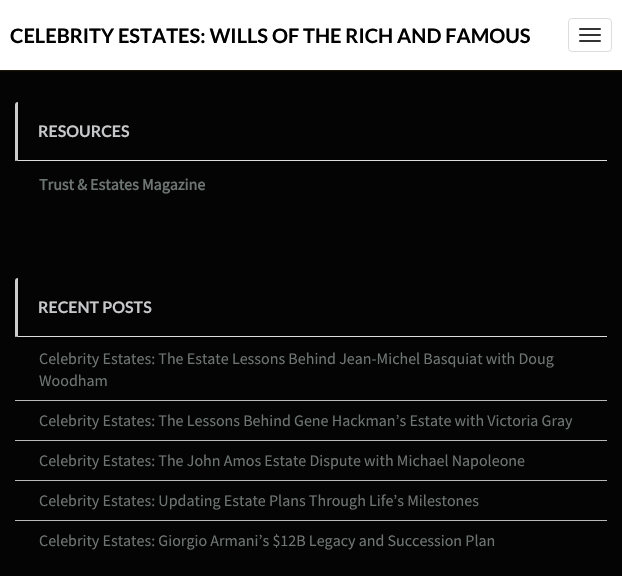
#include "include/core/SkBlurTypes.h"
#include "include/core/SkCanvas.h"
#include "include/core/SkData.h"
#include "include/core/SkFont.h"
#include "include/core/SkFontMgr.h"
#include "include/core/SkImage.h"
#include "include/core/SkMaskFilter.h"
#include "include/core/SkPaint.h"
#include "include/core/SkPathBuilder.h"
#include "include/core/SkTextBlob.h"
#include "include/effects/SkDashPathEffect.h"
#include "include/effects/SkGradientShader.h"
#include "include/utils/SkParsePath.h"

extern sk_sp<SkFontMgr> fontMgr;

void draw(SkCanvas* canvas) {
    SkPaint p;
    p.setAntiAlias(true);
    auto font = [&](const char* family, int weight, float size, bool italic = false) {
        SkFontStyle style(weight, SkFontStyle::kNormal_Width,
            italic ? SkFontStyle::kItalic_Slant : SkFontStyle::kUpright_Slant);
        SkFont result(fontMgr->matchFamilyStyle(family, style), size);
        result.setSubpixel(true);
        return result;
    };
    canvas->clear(0xFF050405);
    p.setColor(0x33646400);
    p.setMaskFilter(SkMaskFilter::MakeBlur(kNormal_SkBlurStyle, 0.5f));
    canvas->drawRect(SkRect::MakeLTRB(0, 1, 622, 71), p);
    p.setMaskFilter(nullptr);
    p.setColor(0xFFFFFFFF);
    canvas->drawRect(SkRect::MakeLTRB(0, 0, 622, 70), p);
    auto font1 = font("Lato", 700, 20);
    p.setColor(0xFF000000);
    canvas->drawString("CELEBRITY ESTATES: WILLS OF THE RICH AND FAMOUS", 10, 43, font1, p);
    p.setStyle(SkPaint::kStroke_Style);
    p.setStrokeWidth(1);
    p.setColor(0xFFDDDDDD);
    canvas->drawRoundRect(SkRect::MakeLTRB(568.5f, 18.5f, 611.5f, 51.5f), 3.5f, 3.5f, p);
    p.setStyle(SkPaint::kFill_Style);
    p.setColor(0xFF333333);
    canvas->drawRoundRect(SkRect::MakeLTRB(579, 28, 601, 30), 1, 1, p);
    canvas->drawRoundRect(SkRect::MakeLTRB(579, 34, 601, 36), 1, 1, p);
    canvas->drawRoundRect(SkRect::MakeLTRB(579, 40, 601, 42), 1, 1, p);
    p.setColor(0xFFDDDDDD);
    canvas->drawPath(SkPathBuilder().moveTo(607, 161).lineTo(15, 161).lineTo(18, 160).lineTo(607, 160).close().detach(), p);
    p.setColor(0xFFCECECE);
    canvas->drawPath(SkPathBuilder().moveTo(15, 161).lineTo(18, 160).lineTo(18, 102).cubicTo(16, 102, 15, 103, 15, 105).close().detach(), p);
    auto font2 = font("Lato", 700, 16);
    p.setColor(0xFFC7C8CA);
    canvas->drawString("RESOURCES", 38, 137, font2, p);
    auto font3 = font("Source Sans Pro", 700, 16);
    p.setColor(0xFF6D7573);
    canvas->drawString("Trust & Estates Magazine", 39, 190, font3, p);
    p.setColor(0xFFDDDDDD);
    canvas->drawPath(SkPathBuilder().moveTo(607, 337).lineTo(15, 337).lineTo(18, 336).lineTo(607, 336).close().detach(), p);
    p.setColor(0xFFCECECE);
    canvas->drawPath(SkPathBuilder().moveTo(15, 337).lineTo(18, 336).lineTo(18, 278).cubicTo(16, 278, 15, 279, 15, 281).close().detach(), p);
    p.setColor(0xFFC7C8CA);
    canvas->drawString("RECENT POSTS", 38, 313, font2, p);
    p.setColor(0xFFBABABA);
    canvas->drawRect(SkRect::MakeLTRB(15, 400, 607, 401), p);
    auto font4 = font("Source Sans Pro", 400, 16);
    p.setColor(0xFF6D7573);
    canvas->drawString("Celebrity Estates: The Estate Lessons Behind Jean-Michel Basquiat with Doug", 39, 364, font4, p);
    canvas->drawString("Woodham", 39, 386, font4, p);
    p.setColor(0xFFBABABA);
    canvas->drawRect(SkRect::MakeLTRB(15, 440, 607, 441), p);
    p.setColor(0xFF6D7573);
    canvas->drawString("Celebrity Estates: The Lessons Behind Gene Hackman’s Estate with Victoria Gray", 39, 426, font4, p);
    p.setColor(0xFFBABABA);
    canvas->drawRect(SkRect::MakeLTRB(15, 480, 607, 481), p);
    p.setColor(0xFF6D7573);
    canvas->drawString("Celebrity Estates: The John Amos Estate Dispute with Michael Napoleone", 39, 466, font4, p);
    p.setColor(0xFFBABABA);
    canvas->drawRect(SkRect::MakeLTRB(15, 520, 607, 521), p);
    p.setColor(0xFF6D7573);
    canvas->drawString("Celebrity Estates: Updating Estate Plans Through Life’s Milestones", 39, 506, font4, p);
    canvas->drawString("Celebrity Estates: Giorgio Armani’s $12B Legacy and Succession Plan", 39, 546, font4, p);
}
